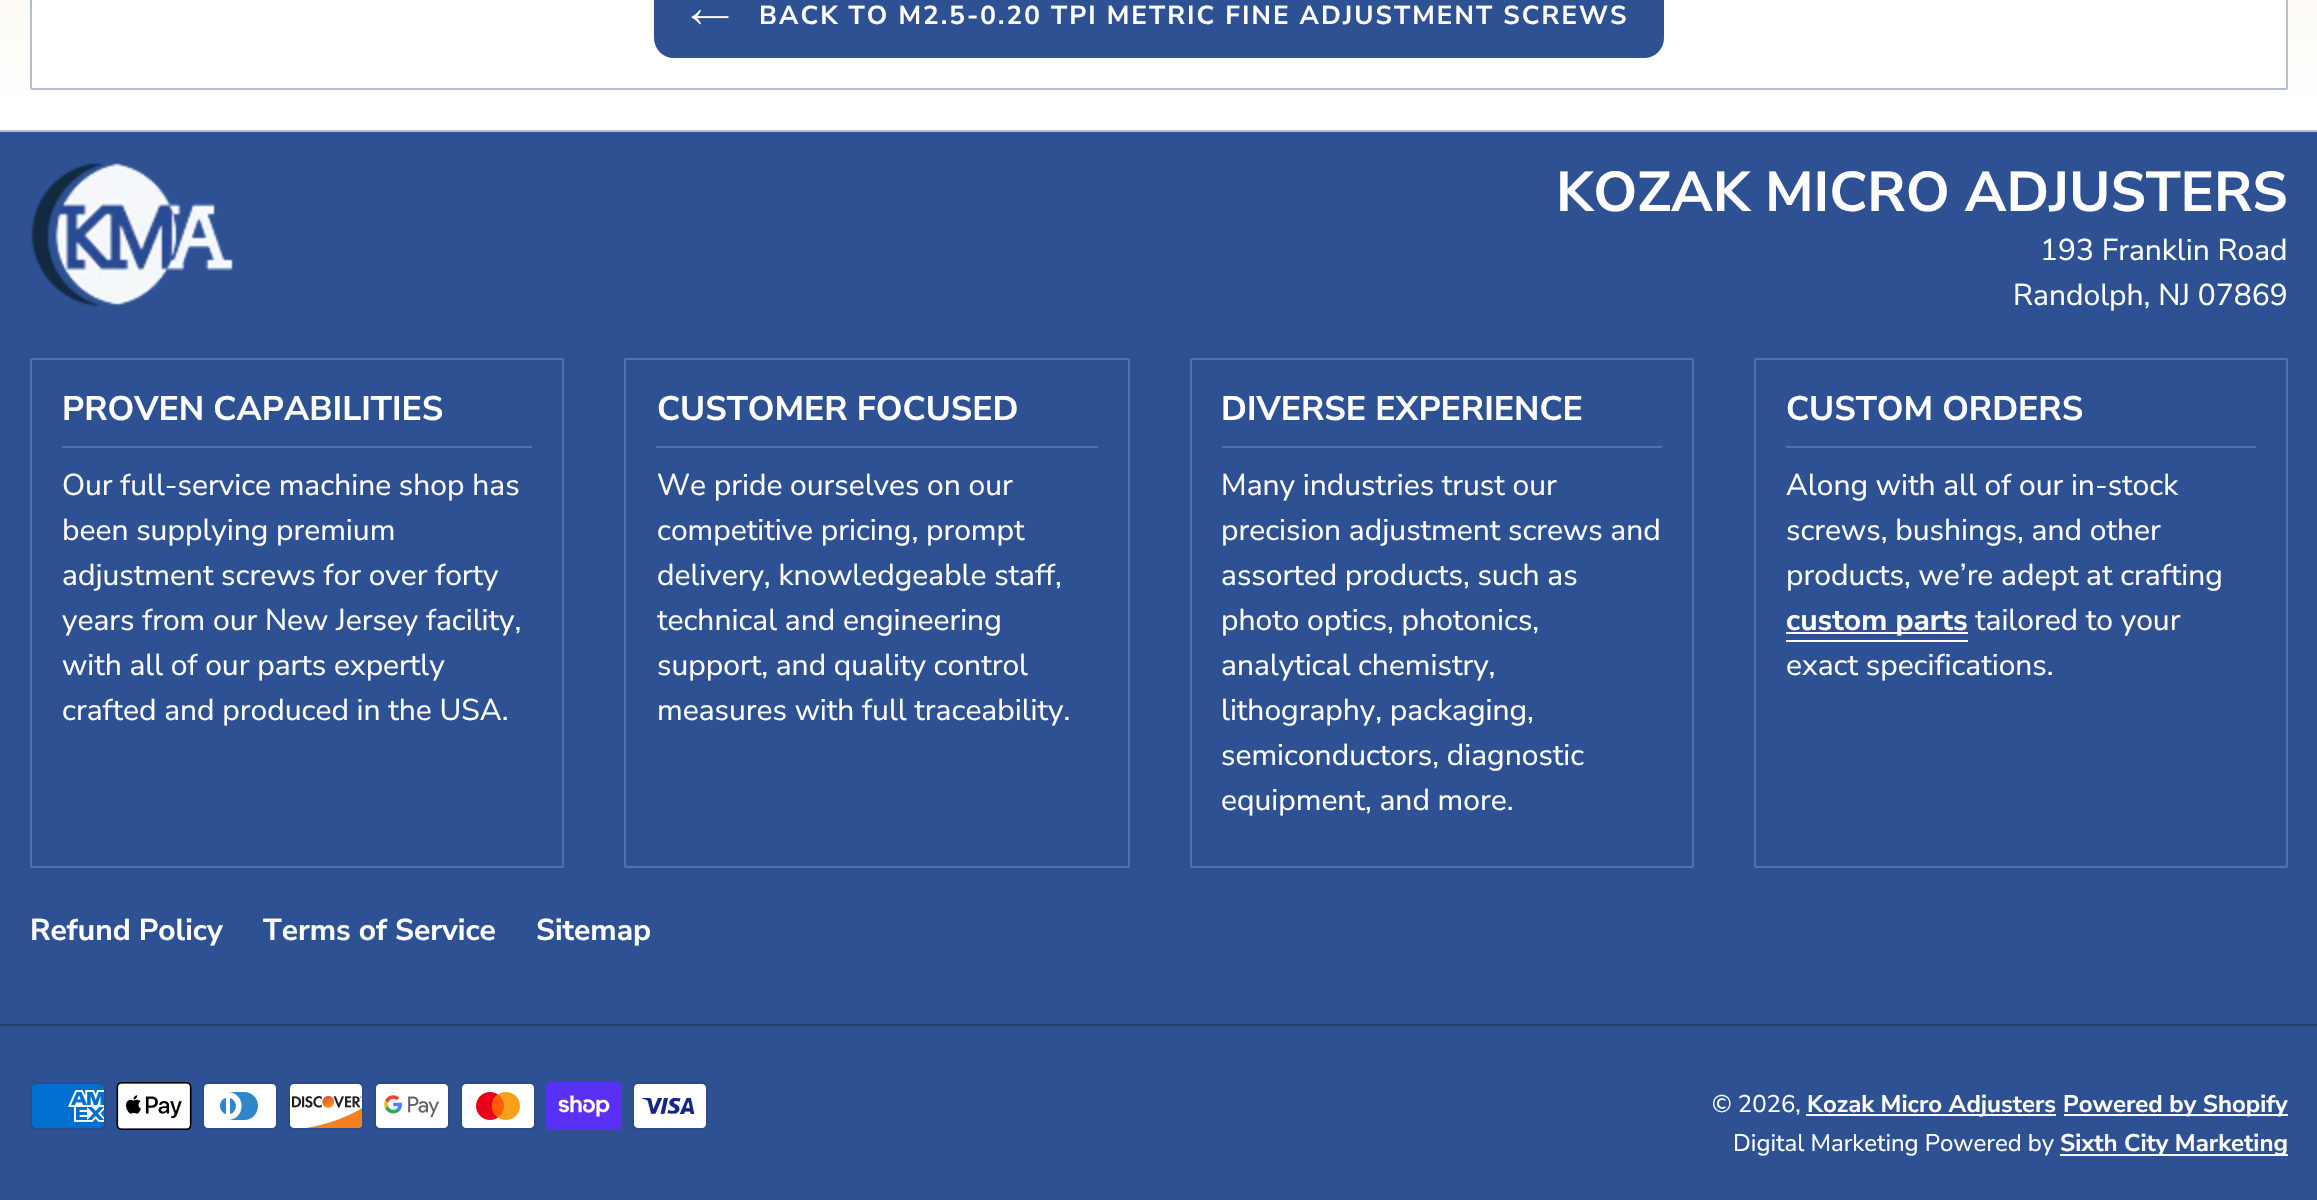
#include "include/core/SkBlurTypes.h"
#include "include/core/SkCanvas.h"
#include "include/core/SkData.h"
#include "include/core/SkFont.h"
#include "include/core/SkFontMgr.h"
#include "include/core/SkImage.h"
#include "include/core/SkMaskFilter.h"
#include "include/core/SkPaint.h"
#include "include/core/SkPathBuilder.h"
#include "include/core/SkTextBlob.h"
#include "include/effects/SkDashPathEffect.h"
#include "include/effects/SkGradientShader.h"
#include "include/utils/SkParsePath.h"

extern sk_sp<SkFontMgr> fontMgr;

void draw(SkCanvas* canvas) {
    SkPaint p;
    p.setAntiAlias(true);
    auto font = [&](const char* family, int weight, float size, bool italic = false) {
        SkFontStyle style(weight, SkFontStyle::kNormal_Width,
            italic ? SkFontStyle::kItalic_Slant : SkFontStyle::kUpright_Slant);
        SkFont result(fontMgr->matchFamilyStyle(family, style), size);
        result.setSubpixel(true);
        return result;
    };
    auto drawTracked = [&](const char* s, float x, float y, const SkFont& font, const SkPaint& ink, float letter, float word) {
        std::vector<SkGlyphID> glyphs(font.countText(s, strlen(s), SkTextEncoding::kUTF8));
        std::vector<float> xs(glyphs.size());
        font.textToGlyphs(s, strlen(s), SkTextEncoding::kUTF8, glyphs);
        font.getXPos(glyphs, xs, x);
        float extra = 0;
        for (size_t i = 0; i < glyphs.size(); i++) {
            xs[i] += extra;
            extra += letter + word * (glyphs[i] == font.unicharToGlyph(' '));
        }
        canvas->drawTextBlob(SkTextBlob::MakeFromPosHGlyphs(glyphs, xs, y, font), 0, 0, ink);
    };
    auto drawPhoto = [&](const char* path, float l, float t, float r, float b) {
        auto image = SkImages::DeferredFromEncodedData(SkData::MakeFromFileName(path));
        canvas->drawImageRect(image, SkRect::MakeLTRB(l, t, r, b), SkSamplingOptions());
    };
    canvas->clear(0xFFFFFFFF);
    {
        const SkColor colors[] = {0xFFDF9004, 0xFFFFFFFF};
        const float stops[] = {0, 1};
        const SkPoint ends[] = {{1159, -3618}, {1159, 130}};
        p.setShader(SkGradientShader::MakeLinear(ends, colors, stops, 2, SkTileMode::kClamp));
        p.setAlpha(255);
    }
    canvas->drawRect(SkRect::MakeLTRB(0, 0, 2317, 93), p);
    p.setShader(nullptr);
    p.setColor(0xFFFFFFFF);
    canvas->drawRoundRect(SkRect::MakeLTRB(31, -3, 2287, 89), 1, 1, p);
    p.setStyle(SkPaint::kStroke_Style);
    p.setStrokeWidth(2);
    p.setColor(0xFFB4BECC);
    canvas->drawRoundRect(SkRect::MakeLTRB(31, -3, 2287, 89), 1, 1, p);
    p.setStyle(SkPaint::kFill_Style);
    p.setColor(0xFF2E5193);
    canvas->drawRoundRect(SkRect::MakeLTRB(654, -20, 1664, 58), 20, 20, p);
    drawPhoto("media/1.png", 691, 10, 729, 25);
    auto font1 = font("Nunito Sans", 700, 26);
    p.setColor(0xFFFFFFFF);
    drawTracked("BACK TO M2.5-0.20 TPI METRIC FINE ADJUSTMENT SCREWS", 759, 24, font1, p, 2.08f, 0);
    p.setColor(0xFF2E5193);
    canvas->drawRect(SkRect::MakeLTRB(0, 132, 2317, 1200), p);
    p.setColor(0xFFB4BECC);
    canvas->drawRect(SkRect::MakeLTRB(0, 130, 2317, 132), p);
    drawPhoto("media/2.png", 31, 163, 233, 307);
    auto font2 = font("Nunito Sans", 700, 56);
    p.setColor(0xFFFFFFFF);
    canvas->drawString("KOZAK MICRO ADJUSTERS", 1556, 211, font2, p);
    auto font3 = font("Nunito Sans", 400, 30);
    canvas->drawString("193 Franklin Road", 2040, 260, font3, p);
    canvas->drawString("Randolph, NJ 07869", 2013, 305, font3, p);
    p.setStyle(SkPaint::kStroke_Style);
    p.setColor(0xFF4D74AD);
    canvas->drawRoundRect(SkRect::MakeLTRB(31, 359, 563, 867), 1, 1, p);
    auto font4 = font("Nunito Sans", 700, 34);
    p.setStyle(SkPaint::kFill_Style);
    p.setColor(0xFFFFFFFF);
    canvas->drawString("PROVEN CAPABILITIES", 62, 420, font4, p);
    p.setColor(0xFF4D74AD);
    canvas->drawRect(SkRect::MakeLTRB(62, 446, 532, 448), p);
    p.setColor(0xFFFFFFFF);
    {
        const struct { const char* s; float x, y; } items[] = {
            {"Our full-service machine shop has", 62, 495},
            {"been supplying premium", 62, 540},
            {"adjustment screws for over forty", 62, 585},
            {"years from our New Jersey facility,", 62, 630},
            {"with all of our parts expertly", 62, 675},
            {"crafted and produced in the USA.", 62, 720},
        };
        for (auto [s, x, y] : items) {
            canvas->drawString(s, x, y, font3, p);
        }
    }
    p.setStyle(SkPaint::kStroke_Style);
    p.setColor(0xFF4D74AD);
    canvas->drawRoundRect(SkRect::MakeLTRB(625, 359, 1129, 867), 1, 1, p);
    p.setStyle(SkPaint::kFill_Style);
    p.setColor(0xFFFFFFFF);
    canvas->drawString("CUSTOMER FOCUSED", 657, 420, font4, p);
    p.setColor(0xFF4D74AD);
    canvas->drawRect(SkRect::MakeLTRB(656, 446, 1098, 448), p);
    p.setColor(0xFFFFFFFF);
    {
        const struct { const char* s; float x, y; } items[] = {
            {"We pride ourselves on our", 657, 495},
            {"competitive pricing, prompt", 657, 540},
            {"delivery, knowledgeable staff,", 657, 585},
            {"technical and engineering", 657, 630},
            {"support, and quality control", 657, 675},
            {"measures with full traceability.", 657, 720},
        };
        for (auto [s, x, y] : items) {
            canvas->drawString(s, x, y, font3, p);
        }
    }
    p.setStyle(SkPaint::kStroke_Style);
    p.setColor(0xFF4D74AD);
    canvas->drawRoundRect(SkRect::MakeLTRB(1191, 359, 1693, 867), 1, 1, p);
    p.setStyle(SkPaint::kFill_Style);
    p.setColor(0xFFFFFFFF);
    canvas->drawString("DIVERSE EXPERIENCE", 1221, 420, font4, p);
    p.setColor(0xFF4D74AD);
    canvas->drawRect(SkRect::MakeLTRB(1222, 446, 1662, 448), p);
    p.setColor(0xFFFFFFFF);
    {
        const struct { const char* s; float x, y; } items[] = {
            {"Many industries trust our", 1221, 495},
            {"precision adjustment screws and", 1221, 540},
            {"assorted products, such as", 1221, 585},
            {"photo optics, photonics,", 1221, 630},
            {"analytical chemistry,", 1221, 675},
            {"lithography, packaging,", 1221, 720},
            {"semiconductors, diagnostic", 1221, 765},
            {"equipment, and more.", 1221, 810},
        };
        for (auto [s, x, y] : items) {
            canvas->drawString(s, x, y, font3, p);
        }
    }
    p.setStyle(SkPaint::kStroke_Style);
    p.setColor(0xFF4D74AD);
    canvas->drawRoundRect(SkRect::MakeLTRB(1755, 359, 2287, 867), 1, 1, p);
    p.setStyle(SkPaint::kFill_Style);
    p.setColor(0xFFFFFFFF);
    canvas->drawString("CUSTOM ORDERS", 1786, 420, font4, p);
    p.setColor(0xFF4D74AD);
    canvas->drawRect(SkRect::MakeLTRB(1786, 446, 2256, 448), p);
    p.setColor(0xFFFFFFFF);
    {
        const struct { const char* s; float x, y; } items[] = {
            {"Along with all of our in-stock", 1786, 495},
            {"screws, bushings, and other", 1786, 540},
            {"products, we’re adept at crafting", 1786, 585},
        };
        for (auto [s, x, y] : items) {
            canvas->drawString(s, x, y, font3, p);
        }
    }
    canvas->drawRect(SkRect::MakeLTRB(1786, 632, 1968, 634), p);
    auto font5 = font("Nunito Sans", 700, 30);
    canvas->drawString("custom parts", 1786, 630, font5, p);
    canvas->drawRect(SkRect::MakeLTRB(1786, 640, 1968, 642), p);
    canvas->drawString("tailored to your", 1975, 630, font3, p);
    canvas->drawString("exact specifications.", 1786, 675, font3, p);
    {
        const struct { const char* s; float x, y; } items[] = {
            {"Refund Policy", 30, 940},
            {"Terms of Service", 263, 940},
            {"Sitemap", 536, 940},
        };
        for (auto [s, x, y] : items) {
            canvas->drawString(s, x, y, font5, p);
        }
    }
    p.setColor(0xFF223C6C);
    canvas->drawRect(SkRect::MakeLTRB(0, 1024, 2317, 1026), p);
    drawPhoto("media/3.png", 30, 1082, 106, 1130);
    drawPhoto("media/4.png", 116, 1082, 192, 1130);
    drawPhoto("media/5.png", 202, 1082, 278, 1130);
    drawPhoto("media/6.png", 288, 1082, 364, 1130);
    drawPhoto("media/7.png", 374, 1082, 450, 1130);
    drawPhoto("media/8.png", 460, 1082, 536, 1130);
    drawPhoto("media/9.png", 546, 1082, 622, 1130);
    drawPhoto("media/10.png", 632, 1082, 708, 1130);
    auto font6 = font("Nunito Sans", 400, 24);
    p.setColor(0xFFFFFFFF);
    canvas->drawString("© 2026,", 1712, 1112, font6, p);
    canvas->drawRect(SkRect::MakeLTRB(1806, 1114, 2056, 1116), p);
    auto font7 = font("Nunito Sans", 700, 24);
    canvas->drawString("Kozak Micro Adjusters", 1807, 1112, font7, p);
    canvas->drawRect(SkRect::MakeLTRB(2064, 1114, 2288, 1116), p);
    canvas->drawString("Powered by Shopify", 2063, 1112, font7, p);
    canvas->drawString("Digital Marketing Powered by", 1733, 1151, font6, p);
    canvas->drawRect(SkRect::MakeLTRB(2060, 1154, 2288, 1156), p);
    canvas->drawString("Sixth City Marketing", 2060, 1151, font7, p);
}
